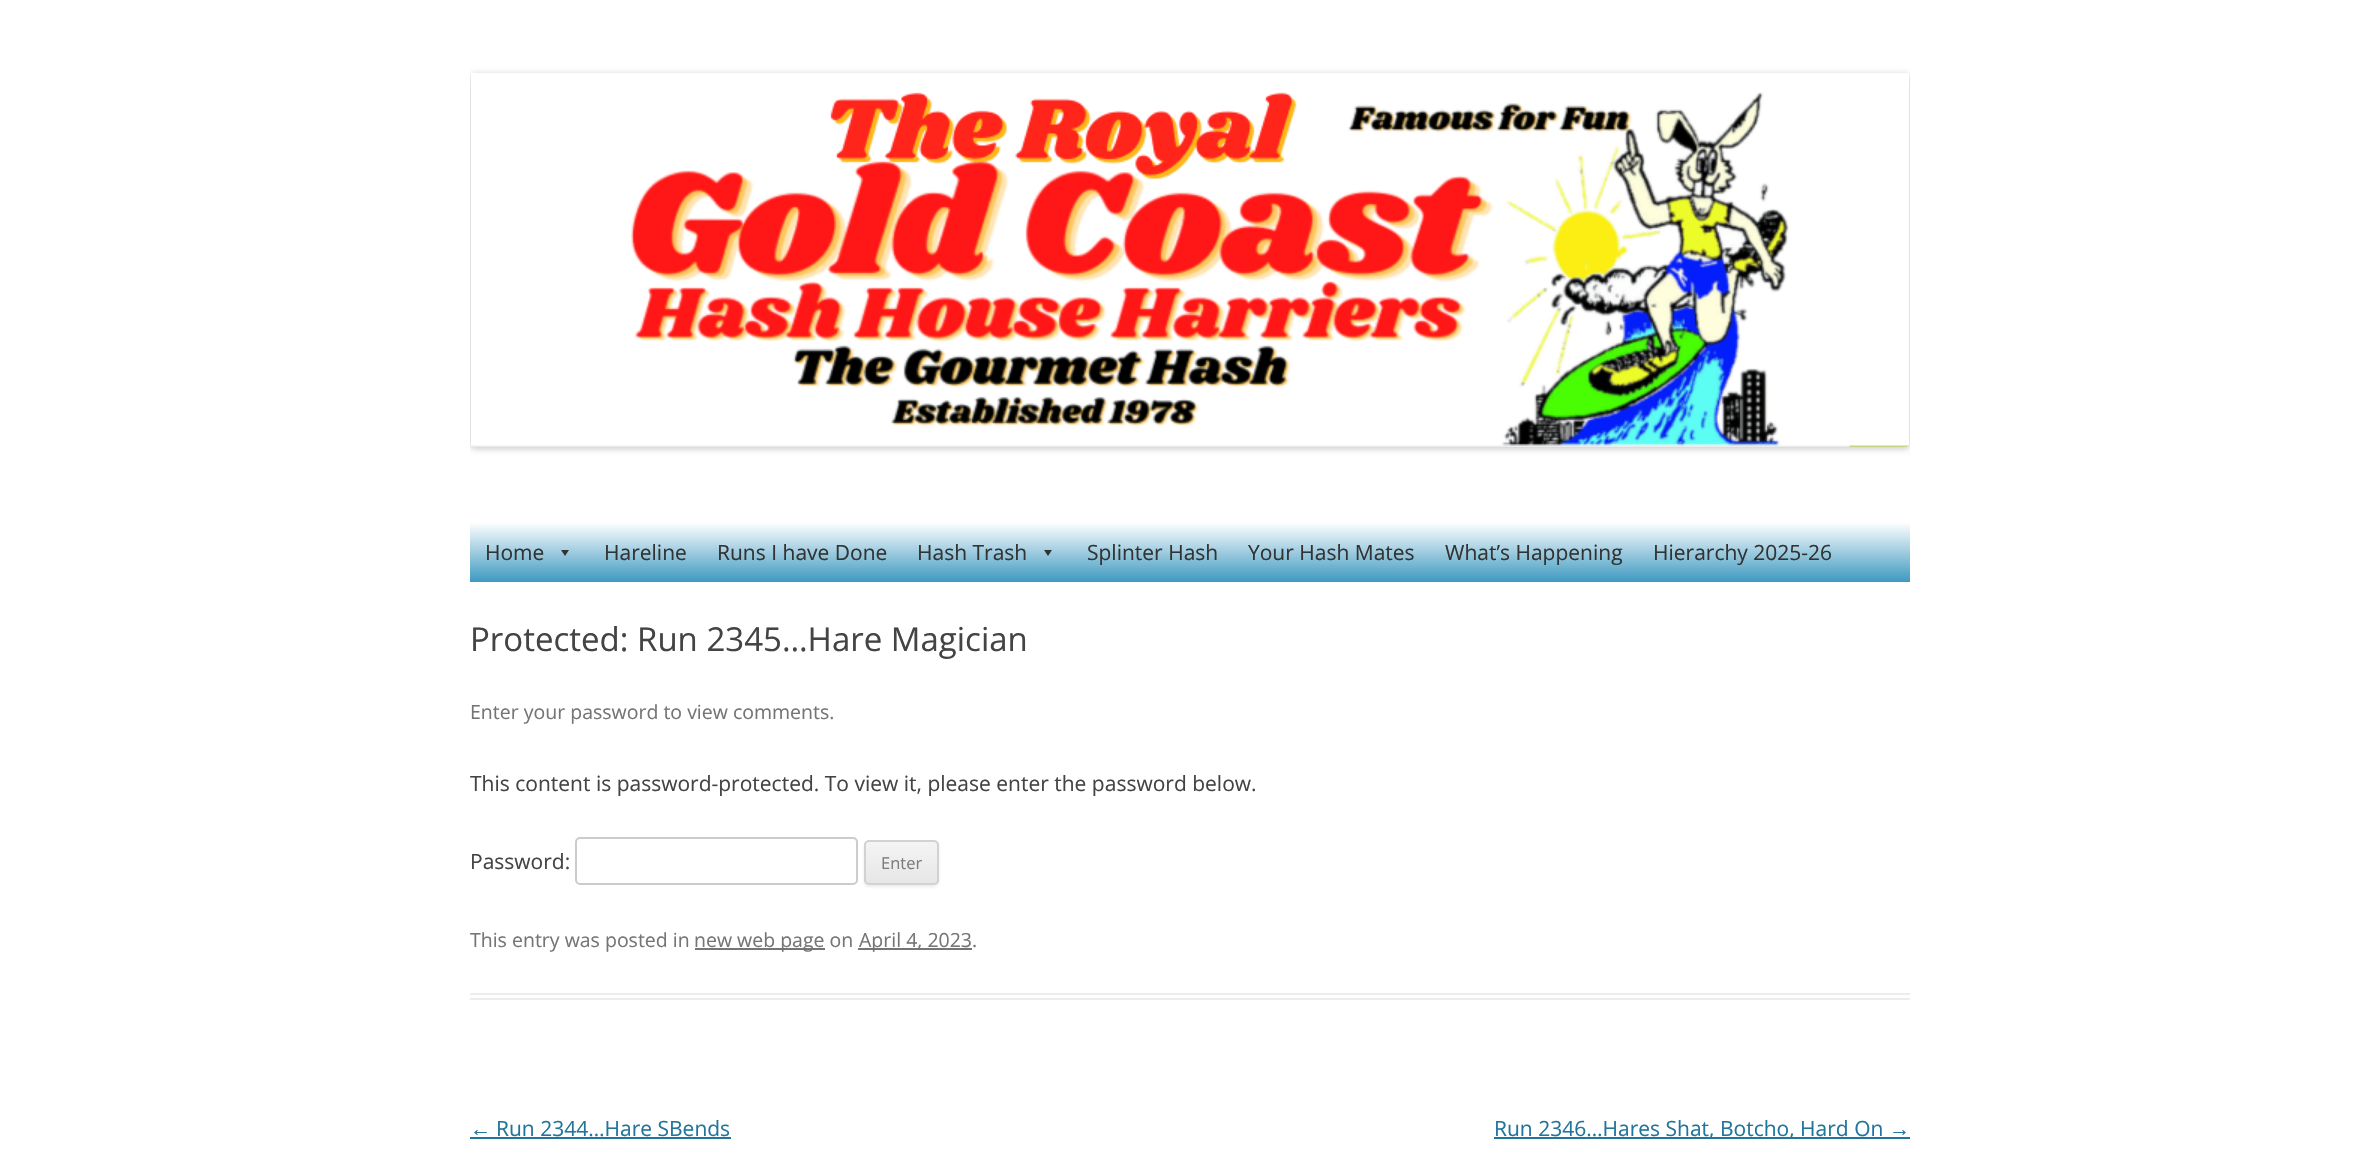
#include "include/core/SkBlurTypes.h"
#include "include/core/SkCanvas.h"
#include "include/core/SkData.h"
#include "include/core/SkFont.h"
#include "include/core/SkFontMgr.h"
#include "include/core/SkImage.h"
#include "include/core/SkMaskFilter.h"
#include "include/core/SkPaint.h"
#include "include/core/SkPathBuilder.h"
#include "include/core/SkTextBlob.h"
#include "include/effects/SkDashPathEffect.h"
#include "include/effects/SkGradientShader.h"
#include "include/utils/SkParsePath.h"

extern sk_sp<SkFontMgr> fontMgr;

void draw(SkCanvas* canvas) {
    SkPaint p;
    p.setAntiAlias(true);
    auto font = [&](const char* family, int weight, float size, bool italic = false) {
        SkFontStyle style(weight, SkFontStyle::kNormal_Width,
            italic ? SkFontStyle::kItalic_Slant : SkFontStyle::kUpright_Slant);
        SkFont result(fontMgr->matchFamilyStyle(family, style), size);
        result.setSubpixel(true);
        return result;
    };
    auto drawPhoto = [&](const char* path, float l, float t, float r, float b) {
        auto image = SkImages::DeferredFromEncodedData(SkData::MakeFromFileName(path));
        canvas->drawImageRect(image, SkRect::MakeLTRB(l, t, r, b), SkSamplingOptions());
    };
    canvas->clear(0xFFFFFFFF);
    canvas->save();
    canvas->clipRect(SkRect::MakeLTRB(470, 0, 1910, 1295));
    p.setColor(0x33000000);
    p.setMaskFilter(SkMaskFilter::MakeBlur(kNormal_SkBlurStyle, 3));
    canvas->drawRoundRect(SkRect::MakeLTRB(470, 74, 1910, 449), 5, 5, p);
    p.setMaskFilter(nullptr);
    canvas->restore();
    drawPhoto("media/1.png", 471, 73, 1909, 447);
    {
        const SkColor colors[] = {0xFFFFFFFF, 0xFF3E99C1};
        const float stops[] = {0, 1};
        const SkPoint ends[] = {{1190, 522}, {1190, 582}};
        p.setShader(SkGradientShader::MakeLinear(ends, colors, stops, 2, SkTileMode::kClamp));
        p.setAlpha(255);
    }
    canvas->drawRect(SkRect::MakeLTRB(470, 523, 1910, 582), p);
    auto font1 = font("Open Sans", 400, 21);
    p.setShader(nullptr);
    p.setColor(0xFF333333);
    canvas->drawString("Home", 485, 560, font1, p);
    canvas->drawPath(SkPathBuilder().moveTo(569, 550).lineTo(565, 556).lineTo(561, 550).close().detach(), p);
    {
        const struct { const char* s; float x, y; } items[] = {
            {"Hareline", 604, 560},
            {"Runs I have Done", 717, 560},
            {"Hash Trash", 917, 560},
        };
        for (auto [s, x, y] : items) {
            canvas->drawString(s, x, y, font1, p);
        }
    }
    canvas->drawPath(SkPathBuilder().moveTo(1052, 550).lineTo(1048, 556).lineTo(1044, 550).close().detach(), p);
    {
        const struct { const char* s; float x, y; } items[] = {
            {"Splinter Hash", 1087, 560},
            {"Your Hash Mates", 1248, 560},
            {"What’s Happening", 1445, 560},
            {"Hierarchy 2025-26", 1653, 560},
        };
        for (auto [s, x, y] : items) {
            canvas->drawString(s, x, y, font1, p);
        }
    }
    p.setColor(0xFFEDEDED);
    canvas->drawRect(SkRect::MakeLTRB(470, 993, 1910, 995), p);
    canvas->drawRect(SkRect::MakeLTRB(470, 998, 1910, 1000), p);
    auto font2 = font("Open Sans", 400, 33);
    p.setColor(0xFF444444);
    canvas->drawString("Protected: Run 2345…Hare Magician", 470, 651, font2, p);
    auto font3 = font("Open Sans", 400, 19.5f);
    p.setColor(0xFF757575);
    canvas->drawString("Enter your password to view comments.", 470, 719, font3, p);
    p.setColor(0xFF444444);
    canvas->drawString("This content is password-protected. To view it, please enter the password below.", 470, 791, font1, p);
    canvas->drawString("Password:", 470, 869, font1, p);
    p.setStyle(SkPaint::kStroke_Style);
    p.setStrokeWidth(2);
    p.setColor(0xFFCCCCCC);
    canvas->drawRoundRect(SkRect::MakeLTRB(576, 838, 857, 884), 4, 4, p);
    p.setStyle(SkPaint::kFill_Style);
    p.setColor(0x1A404040);
    p.setMaskFilter(SkMaskFilter::MakeBlur(kNormal_SkBlurStyle, 1.5f));
    canvas->drawRoundRect(SkRect::MakeLTRB(864, 842, 939, 887), 5, 5, p);
    p.setMaskFilter(nullptr);
    canvas->save();
    canvas->clipPath(SkPathBuilder().moveTo(869, 840).lineTo(934, 840).cubicTo(937, 840, 939, 842, 939, 845).lineTo(939, 880).cubicTo(939, 883, 937, 885, 934, 885).lineTo(869, 885).cubicTo(866, 885, 864, 883, 864, 880).lineTo(864, 845).cubicTo(864, 842, 866, 840, 869, 840).close().detach(), true);
    {
        const SkColor colors[] = {0xFFF4F4F4, 0xFFE6E6E6};
        const float stops[] = {0, 1};
        const SkPoint ends[] = {{902, 842}, {902, 884}};
        p.setShader(SkGradientShader::MakeLinear(ends, colors, stops, 2, SkTileMode::kClamp));
        p.setAlpha(255);
    }
    canvas->drawRect(SkRect::MakeLTRB(864, 842, 939, 884), p);
    canvas->restore();
    p.setStyle(SkPaint::kStroke_Style);
    p.setShader(nullptr);
    p.setColor(0xFFD2D2D2);
    canvas->drawRoundRect(SkRect::MakeLTRB(865, 841, 938, 884), 4, 4, p);
    auto font4 = font("Open Sans", 400, 16.5f);
    p.setStyle(SkPaint::kFill_Style);
    p.setColor(0xFF7C7C7C);
    canvas->drawString("Enter", 881, 869, font4, p);
    p.setColor(0xFF757575);
    canvas->drawString("This entry was posted in", 470, 947, font3, p);
    canvas->drawRect(SkRect::MakeLTRB(695, 948, 825, 950), p);
    canvas->drawString("new web page on", 694, 947, font3, p);
    canvas->drawRect(SkRect::MakeLTRB(858, 948, 972, 950), p);
    canvas->drawString("April 4, 2023.", 859, 947, font3, p);
    auto font5 = font("Liberation Sans", 400, 21);
    p.setColor(0xFF21759B);
    canvas->drawString("←", 470, 1136, font5, p);
    canvas->drawRect(SkRect::MakeLTRB(470, 1137, 731, 1139), p);
    canvas->drawString("Run 2344…Hare SBends", 496, 1136, font1, p);
    canvas->drawRect(SkRect::MakeLTRB(1494, 1137, 1910, 1139), p);
    canvas->drawString("Run 2346…Hares Shat, Botcho, Hard On", 1494, 1136, font1, p);
    canvas->drawString("→", 1889, 1136, font5, p);
}
